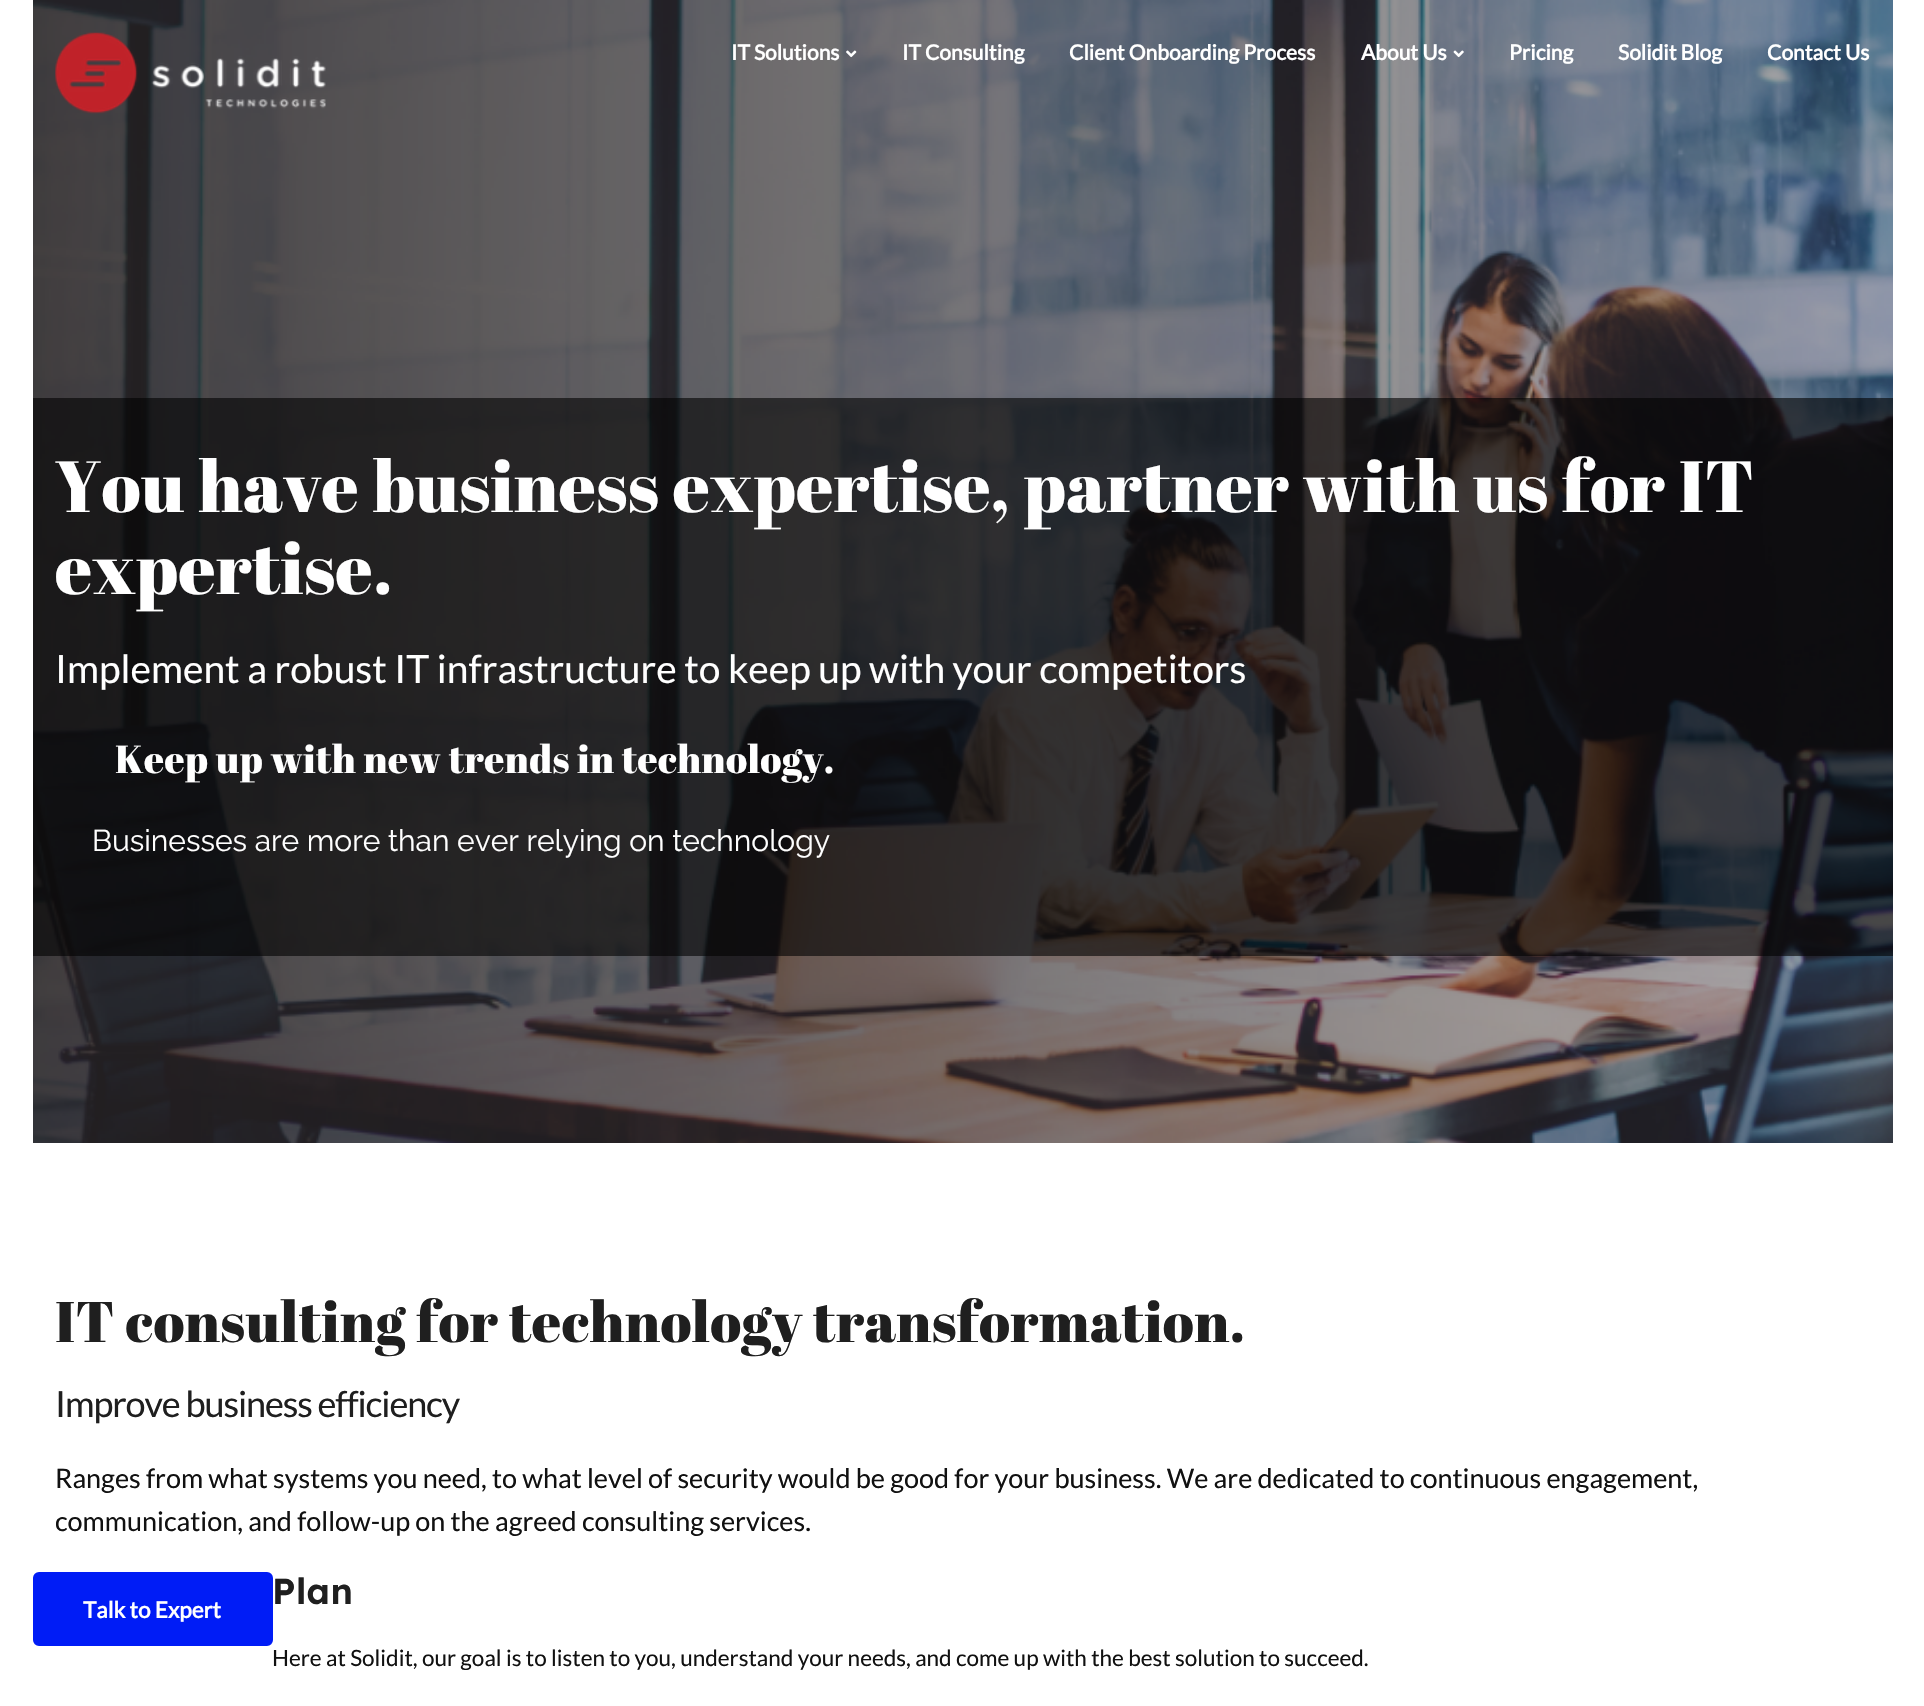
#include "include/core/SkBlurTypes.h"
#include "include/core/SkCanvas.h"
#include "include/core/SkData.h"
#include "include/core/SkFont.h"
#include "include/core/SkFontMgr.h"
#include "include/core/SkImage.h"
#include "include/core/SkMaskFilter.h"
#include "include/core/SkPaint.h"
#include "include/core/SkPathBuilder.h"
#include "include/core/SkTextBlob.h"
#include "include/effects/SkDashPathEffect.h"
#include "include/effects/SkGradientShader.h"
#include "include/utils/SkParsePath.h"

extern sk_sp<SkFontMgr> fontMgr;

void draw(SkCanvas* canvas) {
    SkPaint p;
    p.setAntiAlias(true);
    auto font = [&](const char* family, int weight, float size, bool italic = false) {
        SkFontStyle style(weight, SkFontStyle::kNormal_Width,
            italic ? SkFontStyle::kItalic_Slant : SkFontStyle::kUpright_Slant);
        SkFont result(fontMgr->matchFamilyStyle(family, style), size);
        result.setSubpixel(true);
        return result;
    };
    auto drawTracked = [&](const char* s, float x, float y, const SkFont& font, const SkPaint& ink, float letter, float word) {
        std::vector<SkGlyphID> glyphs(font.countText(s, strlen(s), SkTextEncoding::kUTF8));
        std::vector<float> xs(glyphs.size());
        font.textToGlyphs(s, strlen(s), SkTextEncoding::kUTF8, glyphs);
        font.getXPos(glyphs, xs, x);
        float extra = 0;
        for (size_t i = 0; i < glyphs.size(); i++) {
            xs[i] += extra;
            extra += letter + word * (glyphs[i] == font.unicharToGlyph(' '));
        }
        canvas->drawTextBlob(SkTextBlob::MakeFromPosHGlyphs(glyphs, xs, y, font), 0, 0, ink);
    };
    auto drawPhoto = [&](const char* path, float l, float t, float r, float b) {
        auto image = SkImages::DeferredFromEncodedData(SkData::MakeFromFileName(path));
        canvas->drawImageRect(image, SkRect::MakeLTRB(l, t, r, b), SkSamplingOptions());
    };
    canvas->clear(0xFFFFFFFF);
    drawPhoto("media/4.png", 33, 0, 1893, 1143);
    drawPhoto("media/1.png", 55, 32, 326, 114);
    auto font1 = font("Lato", 700, 21);
    p.setColor(0xFFFFFFFF);
    canvas->drawString("IT Solutions", 731, 60, font1, p);
    drawPhoto("media/2.png", 846, 50, 857, 58);
    {
        const struct { const char* s; float x, y; } items[] = {
            {"IT Consulting", 902, 60},
            {"Client Onboarding Process", 1069, 60},
            {"About Us", 1361, 60},
        };
        for (auto [s, x, y] : items) {
            canvas->drawString(s, x, y, font1, p);
        }
    }
    drawPhoto("media/3.png", 1453, 50, 1464, 58);
    {
        const struct { const char* s; float x, y; } items[] = {
            {"Pricing", 1509, 60},
            {"Solidit Blog", 1618, 60},
            {"Contact Us", 1767, 60},
        };
        for (auto [s, x, y] : items) {
            canvas->drawString(s, x, y, font1, p);
        }
    }
    p.setColor(0x99000000);
    canvas->drawRect(SkRect::MakeLTRB(33, 398, 1893, 956), p);
    auto font2 = font("Abril Fatface", 400, 72);
    p.setColor(0xFFFFFFFF);
    drawTracked("You have business expertise, partner with us for IT", 55, 512, font2, p, 0.38f, 0);
    drawTracked("expertise.", 55, 594, font2, p, 0.38f, 0);
    auto font3 = font("Lato", 400, 39);
    canvas->drawString("Implement a robust IT infrastructure to keep up with your competitors", 55, 683, font3, p);
    auto font4 = font("Abril Fatface", 400, 39);
    drawTracked("Keep up with new trends in technology.", 115, 773, font4, p, 0.38f, 0);
    auto font5 = font("Raleway", 400, 30);
    canvas->drawString("Businesses are more than ever relying on technology", 92, 851, font5, p);
    auto font6 = font("Abril Fatface", 400, 57);
    p.setColor(0xFF1F1F1F);
    drawTracked("IT consulting for technology transformation.", 55, 1342, font6, p, 0.38f, 0);
    auto font7 = font("Lato", 400, 36);
    drawTracked("Improve business efficiency", 55, 1417, font7, p, -1.1f, 0);
    auto font8 = font("Lato", 400, 27);
    p.setColor(0xFF111111);
    canvas->drawString("Ranges from what systems you need, to what level of security would be good for your business. We are dedicated to continuous engagement,", 55, 1488, font8, p);
    canvas->drawString("communication, and follow-up on the agreed consulting services.", 55, 1531, font8, p);
    p.setColor(0xFF001CF6);
    canvas->drawRoundRect(SkRect::MakeLTRB(34.5f, 1573.5f, 271.5f, 1644.5f), 4.5f, 4.5f, p);
    p.setStyle(SkPaint::kStroke_Style);
    p.setStrokeWidth(3);
    canvas->drawRoundRect(SkRect::MakeLTRB(34.5f, 1573.5f, 271.5f, 1644.5f), 4.5f, 4.5f, p);
    auto font9 = font("Lato", 700, 22.5f);
    p.setStyle(SkPaint::kFill_Style);
    p.setColor(0xFFFFFFFF);
    canvas->drawString("Talk to Expert", 83, 1618, font9, p);
    auto font10 = font("Lexend", 600, 36);
    p.setColor(0xFF1F1F1F);
    drawTracked("Plan", 272, 1604, font10, p, 0.38f, 0);
    auto font11 = font("Lato", 400, 22.5f);
    p.setColor(0xFF111111);
    canvas->drawString("Here at Solidit, our goal is to listen to you, understand your needs, and come up with the best solution to succeed.", 272, 1666, font11, p);
}
